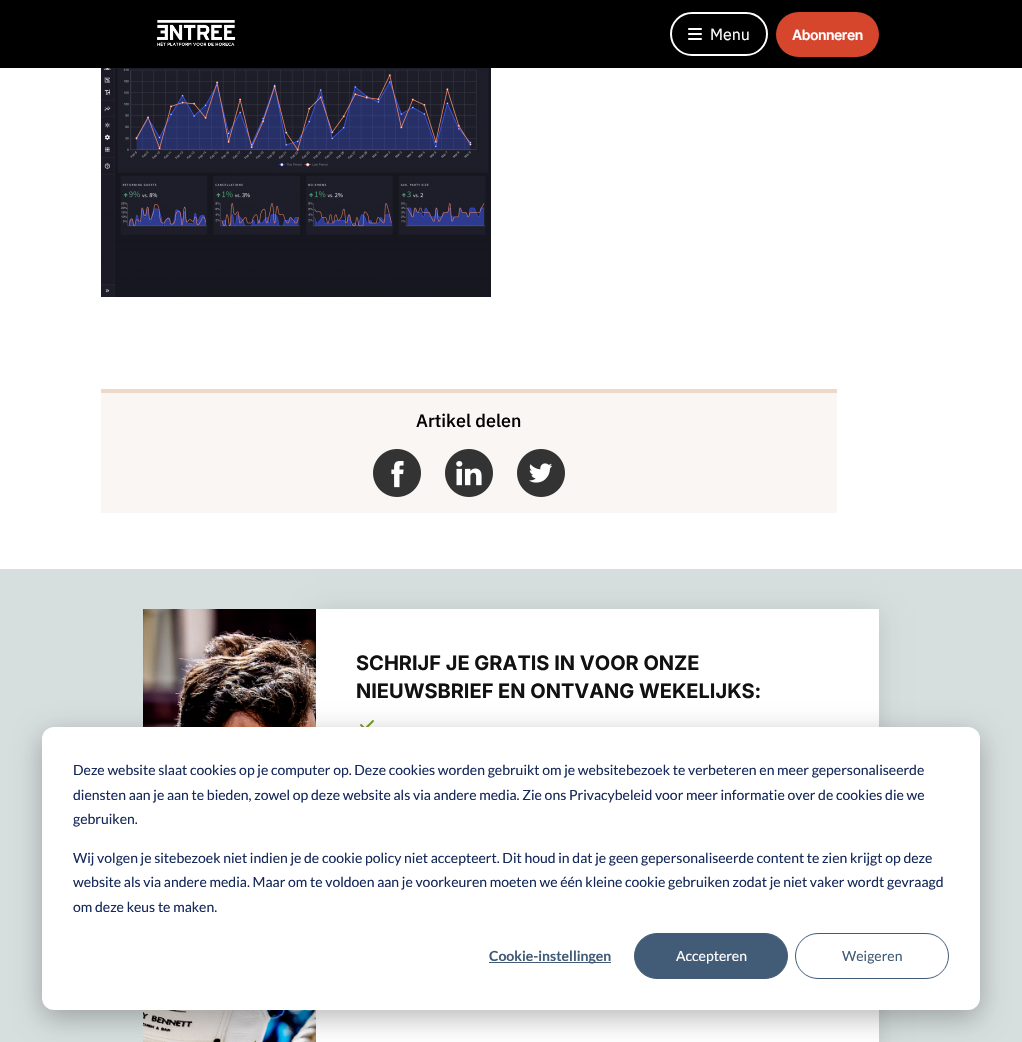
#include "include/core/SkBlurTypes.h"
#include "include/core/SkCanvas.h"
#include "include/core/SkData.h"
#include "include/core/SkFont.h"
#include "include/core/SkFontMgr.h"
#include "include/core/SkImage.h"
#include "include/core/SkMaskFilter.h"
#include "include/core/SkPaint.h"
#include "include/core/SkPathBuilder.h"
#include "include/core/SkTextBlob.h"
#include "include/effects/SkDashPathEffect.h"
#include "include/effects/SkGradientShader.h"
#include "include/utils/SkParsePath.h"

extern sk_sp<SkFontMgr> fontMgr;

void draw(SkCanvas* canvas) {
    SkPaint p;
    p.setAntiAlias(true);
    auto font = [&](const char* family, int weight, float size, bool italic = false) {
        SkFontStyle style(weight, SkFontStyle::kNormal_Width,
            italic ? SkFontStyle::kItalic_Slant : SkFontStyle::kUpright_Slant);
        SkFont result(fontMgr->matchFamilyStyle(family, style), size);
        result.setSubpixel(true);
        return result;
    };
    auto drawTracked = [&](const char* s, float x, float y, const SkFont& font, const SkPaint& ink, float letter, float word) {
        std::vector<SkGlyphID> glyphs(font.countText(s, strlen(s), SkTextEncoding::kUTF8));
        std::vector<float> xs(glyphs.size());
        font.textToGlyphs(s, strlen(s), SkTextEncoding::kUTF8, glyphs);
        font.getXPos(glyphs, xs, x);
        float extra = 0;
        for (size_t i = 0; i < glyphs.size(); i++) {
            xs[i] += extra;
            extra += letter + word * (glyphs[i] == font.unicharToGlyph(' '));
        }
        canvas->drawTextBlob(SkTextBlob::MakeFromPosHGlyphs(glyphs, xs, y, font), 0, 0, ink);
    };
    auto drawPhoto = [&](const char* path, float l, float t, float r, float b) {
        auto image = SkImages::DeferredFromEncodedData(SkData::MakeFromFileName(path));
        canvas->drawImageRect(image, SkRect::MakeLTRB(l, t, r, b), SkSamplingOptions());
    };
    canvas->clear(0xFFFFFFFF);
    p.setColor(0xFF000000);
    canvas->drawRect(SkRect::MakeLTRB(0, 0, 1022, 68), p);
    drawPhoto("media/1.png", 157, 20, 236, 46);
    p.setStyle(SkPaint::kStroke_Style);
    p.setStrokeWidth(2);
    p.setColor(0xFFFFFFFF);
    canvas->drawRoundRect(SkRect::MakeLTRB(671, 13, 767, 55), 21, 21, p);
    drawPhoto("media/2.png", 688, 28, 702, 40);
    auto font1 = font("IBM Plex Sans", 400, 16);
    p.setStyle(SkPaint::kFill_Style);
    canvas->drawString("Menu", 710, 40, font1, p);
    p.setColor(0xFFD6462D);
    canvas->drawRoundRect(SkRect::MakeLTRB(776, 12, 879, 57), 22.5f, 22.5f, p);
    auto font2 = font("Inter", 600, 14);
    p.setColor(0xFFFFFFFF);
    drawTracked("Abonneren", 792, 40, font2, p, -0.5f, 0);
    drawPhoto("media/3.png", 101, 68, 491, 297);
    p.setColor(0xFFEDDAC6);
    canvas->drawRect(SkRect::MakeLTRB(101, 389, 837, 393), p);
    p.setColor(0xFFF9F6F3);
    canvas->drawRect(SkRect::MakeLTRB(101, 393, 837, 513), p);
    auto font3 = font("IBM Plex Sans", 500, 18);
    p.setColor(0xFF000000);
    canvas->drawString("Artikel delen", 416, 427, font3, p);
    drawPhoto("media/4.png", 373, 449, 421, 497);
    drawPhoto("media/5.png", 445, 449, 493, 497);
    drawPhoto("media/6.png", 517, 449, 565, 497);
    p.setColor(0xFFD7DFDE);
    canvas->drawRect(SkRect::MakeLTRB(0, 569, 1022, 1042), p);
    drawPhoto("media/7.png", 143, 609, 316, 1042);
    p.setColor(0x1F000000);
    p.setMaskFilter(SkMaskFilter::MakeBlur(kNormal_SkBlurStyle, 12));
    canvas->drawRect(SkRect::MakeLTRB(316, 611, 879, 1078), p);
    p.setMaskFilter(nullptr);
    p.setColor(0xFFFFFFFF);
    canvas->drawRect(SkRect::MakeLTRB(316, 609, 879, 1042), p);
    auto font4 = font("Inter", 700, 20);
    p.setColor(0xFF111111);
    canvas->drawString("SCHRIJF JE GRATIS IN VOOR ONZE", 356, 670, font4, p);
    canvas->drawString("NIEUWSBRIEF EN ONTVANG WEKELIJKS:", 356, 698, font4, p);
    drawPhoto("media/8.png", 360, 720, 374, 727);
    p.setColor(0x47000000);
    p.setMaskFilter(SkMaskFilter::MakeBlur(kNormal_SkBlurStyle, 14));
    canvas->drawRoundRect(SkRect::MakeLTRB(42, 735, 980, 1018), 12, 12, p);
    p.setMaskFilter(nullptr);
    p.setColor(0xFFFFFFFF);
    canvas->drawRoundRect(SkRect::MakeLTRB(42, 727, 980, 1010), 12, 12, p);
    auto font5 = font("Lato", 400, 14);
    p.setColor(0xFF15295A);
    {
        const struct { const char* s; float x, y; } items[] = {
            {"Deze website slaat cookies op je computer op. Deze cookies worden gebruikt om je websitebezoek te verbeteren en meer gepersonaliseerde", 73, 775},
            {"diensten aan je aan te bieden, zowel op deze website als via andere media. Zie ons Privacybeleid voor meer informatie over de cookies die we", 73, 800},
            {"gebruiken.", 73, 824},
            {"Wij volgen je sitebezoek niet indien je de cookie policy niet accepteert. Dit houd in dat je geen gepersonaliseerde content te zien krijgt op deze", 73, 863},
            {"website als via andere media. Maar om te voldoen aan je voorkeuren moeten we één kleine cookie gebruiken zodat je niet vaker wordt gevraagd", 73, 887},
            {"om deze keus te maken.", 73, 912},
        };
        for (auto [s, x, y] : items) {
            canvas->drawString(s, x, y, font5, p);
        }
    }
    p.setColor(0xFF425B76);
    canvas->drawRect(SkRect::MakeLTRB(489, 962, 611, 963), p);
    auto font6 = font("Lato", 700, 14);
    canvas->drawString("Cookie-instellingen", 489, 961, font6, p);
    canvas->drawRoundRect(SkRect::MakeLTRB(634.5f, 933.5f, 787.5f, 978.5f), 22.5f, 22.5f, p);
    p.setStyle(SkPaint::kStroke_Style);
    p.setStrokeWidth(1);
    canvas->drawRoundRect(SkRect::MakeLTRB(634.5f, 933.5f, 787.5f, 978.5f), 22.5f, 22.5f, p);
    p.setStyle(SkPaint::kFill_Style);
    p.setColor(0xFFFFFFFF);
    canvas->drawString("Accepteren", 676, 961, font5, p);
    p.setStyle(SkPaint::kStroke_Style);
    p.setColor(0xFF425B76);
    canvas->drawRoundRect(SkRect::MakeLTRB(795.5f, 933.5f, 948.5f, 978.5f), 22.5f, 22.5f, p);
    p.setStyle(SkPaint::kFill_Style);
    canvas->drawString("Weigeren", 842, 961, font5, p);
}
